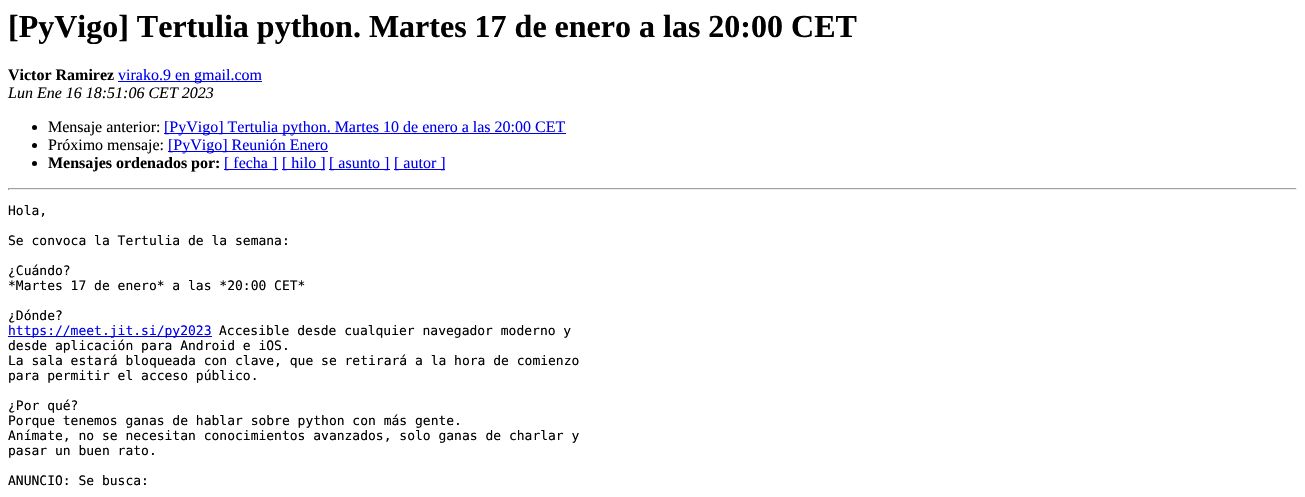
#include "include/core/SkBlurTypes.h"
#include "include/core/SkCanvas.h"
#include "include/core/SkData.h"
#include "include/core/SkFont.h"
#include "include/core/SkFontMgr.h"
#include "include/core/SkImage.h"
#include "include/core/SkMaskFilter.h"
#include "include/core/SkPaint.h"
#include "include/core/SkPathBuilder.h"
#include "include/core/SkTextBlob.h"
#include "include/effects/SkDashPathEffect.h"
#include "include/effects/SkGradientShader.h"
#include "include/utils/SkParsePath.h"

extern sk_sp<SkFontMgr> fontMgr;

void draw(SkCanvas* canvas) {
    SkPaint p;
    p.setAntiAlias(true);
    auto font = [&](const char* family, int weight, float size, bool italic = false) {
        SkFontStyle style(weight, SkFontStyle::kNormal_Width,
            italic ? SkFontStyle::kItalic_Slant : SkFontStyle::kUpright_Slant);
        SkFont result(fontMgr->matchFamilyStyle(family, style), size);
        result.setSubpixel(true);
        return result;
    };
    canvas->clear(0xFFFFFFFF);
    auto font1 = font("Liberation Serif", 700, 32);
    p.setColor(0xFF000000);
    canvas->drawString("[PyVigo] Tertulia python. Martes 17 de enero a las 20:00 CET", 8, 37, font1, p);
    auto font2 = font("Liberation Serif", 700, 16);
    canvas->drawString("Victor Ramirez", 8, 80, font2, p);
    p.setColor(0xFF0000EE);
    canvas->drawRect(SkRect::MakeLTRB(118, 81, 262, 82), p);
    auto font3 = font("Liberation Serif", 400, 16);
    canvas->drawString("virako.9 en gmail.com", 118, 80, font3, p);
    auto font4 = font("Liberation Serif", 400, 16, true);
    p.setColor(0xFF000000);
    canvas->drawString("Lun Ene 16 18:51:06 CET 2023", 8, 98, font4, p);
    canvas->drawCircle(34.5f, 127.5f, 2.5f, p);
    canvas->drawString("Mensaje anterior:", 48, 132, font3, p);
    p.setColor(0xFF0000EE);
    canvas->drawRect(SkRect::MakeLTRB(164, 133, 566, 134), p);
    canvas->drawString("[PyVigo] Tertulia python. Martes 10 de enero a las 20:00 CET", 164, 132, font3, p);
    p.setColor(0xFF000000);
    canvas->drawCircle(34.5f, 145.5f, 2.5f, p);
    canvas->drawString("Próximo mensaje:", 48, 150, font3, p);
    p.setColor(0xFF0000EE);
    canvas->drawRect(SkRect::MakeLTRB(168, 151, 328, 152), p);
    canvas->drawString("[PyVigo] Reunión Enero", 168, 150, font3, p);
    p.setColor(0xFF000000);
    canvas->drawCircle(34.5f, 163.5f, 2.5f, p);
    canvas->drawString("Mensajes ordenados por:", 48, 168, font2, p);
    p.setColor(0xFF0000EE);
    canvas->drawRect(SkRect::MakeLTRB(224, 169, 278, 170), p);
    canvas->drawString("[ fecha ]", 224, 168, font3, p);
    canvas->drawRect(SkRect::MakeLTRB(282, 169, 325, 170), p);
    canvas->drawString("[ hilo ]", 282, 168, font3, p);
    canvas->drawRect(SkRect::MakeLTRB(329, 169, 390, 170), p);
    canvas->drawString("[ asunto ]", 329, 168, font3, p);
    canvas->drawRect(SkRect::MakeLTRB(394, 169, 445, 170), p);
    canvas->drawString("[ autor ]", 394, 168, font3, p);
    {
        const struct { float l, t, r, b; SkColor color; } items[] = {
            {8, 188, 1297, 189, 0xFF9F9F9F},
            {1296, 188, 1297, 190, 0xFFEEEEEE},
            {8, 189, 1297, 190, 0xFFEEEEEE},
            {8, 188, 9, 190, 0xFF9F9F9F},
        };
        for (auto [l, t, r, b, color] : items) {
            p.setColor(color);
            canvas->drawRect(SkRect::MakeLTRB(l, t, r, b), p);
        }
    }
    auto font5 = font("DejaVu Sans Mono", 400, 13);
    p.setColor(0xFF000000);
    {
        const struct { const char* s; float x, y; } items[] = {
            {"Hola,", 8, 215},
            {"Se convoca la Tertulia de la semana:", 8, 245},
            {"¿Cuándo?", 8, 275},
            {"*Martes 17 de enero* a las *20:00 CET*", 8, 290},
            {"¿Dónde?", 8, 320},
        };
        for (auto [s, x, y] : items) {
            canvas->drawString(s, x, y, font5, p);
        }
    }
    p.setColor(0xFF0000EE);
    canvas->drawRect(SkRect::MakeLTRB(8, 336, 212, 337), p);
    canvas->drawString("https://meet.jit.si/py2023", 8, 335, font5, p);
    p.setColor(0xFF000000);
    {
        const struct { const char* s; float x, y; } items[] = {
            {"Accesible desde cualquier navegador moderno y", 219, 335},
            {"desde aplicación para Android e iOS.", 8, 350},
            {"La sala estará bloqueada con clave, que se retirará a la hora de comienzo", 8, 365},
            {"para permitir el acceso público.", 8, 380},
            {"¿Por qué?", 8, 410},
            {"Porque tenemos ganas de hablar sobre python con más gente.", 8, 425},
            {"Anímate, no se necesitan conocimientos avanzados, solo ganas de charlar y", 8, 440},
            {"pasar un buen rato.", 8, 455},
            {"ANUNCIO: Se busca:", 8, 485},
        };
        for (auto [s, x, y] : items) {
            canvas->drawString(s, x, y, font5, p);
        }
    }
}
